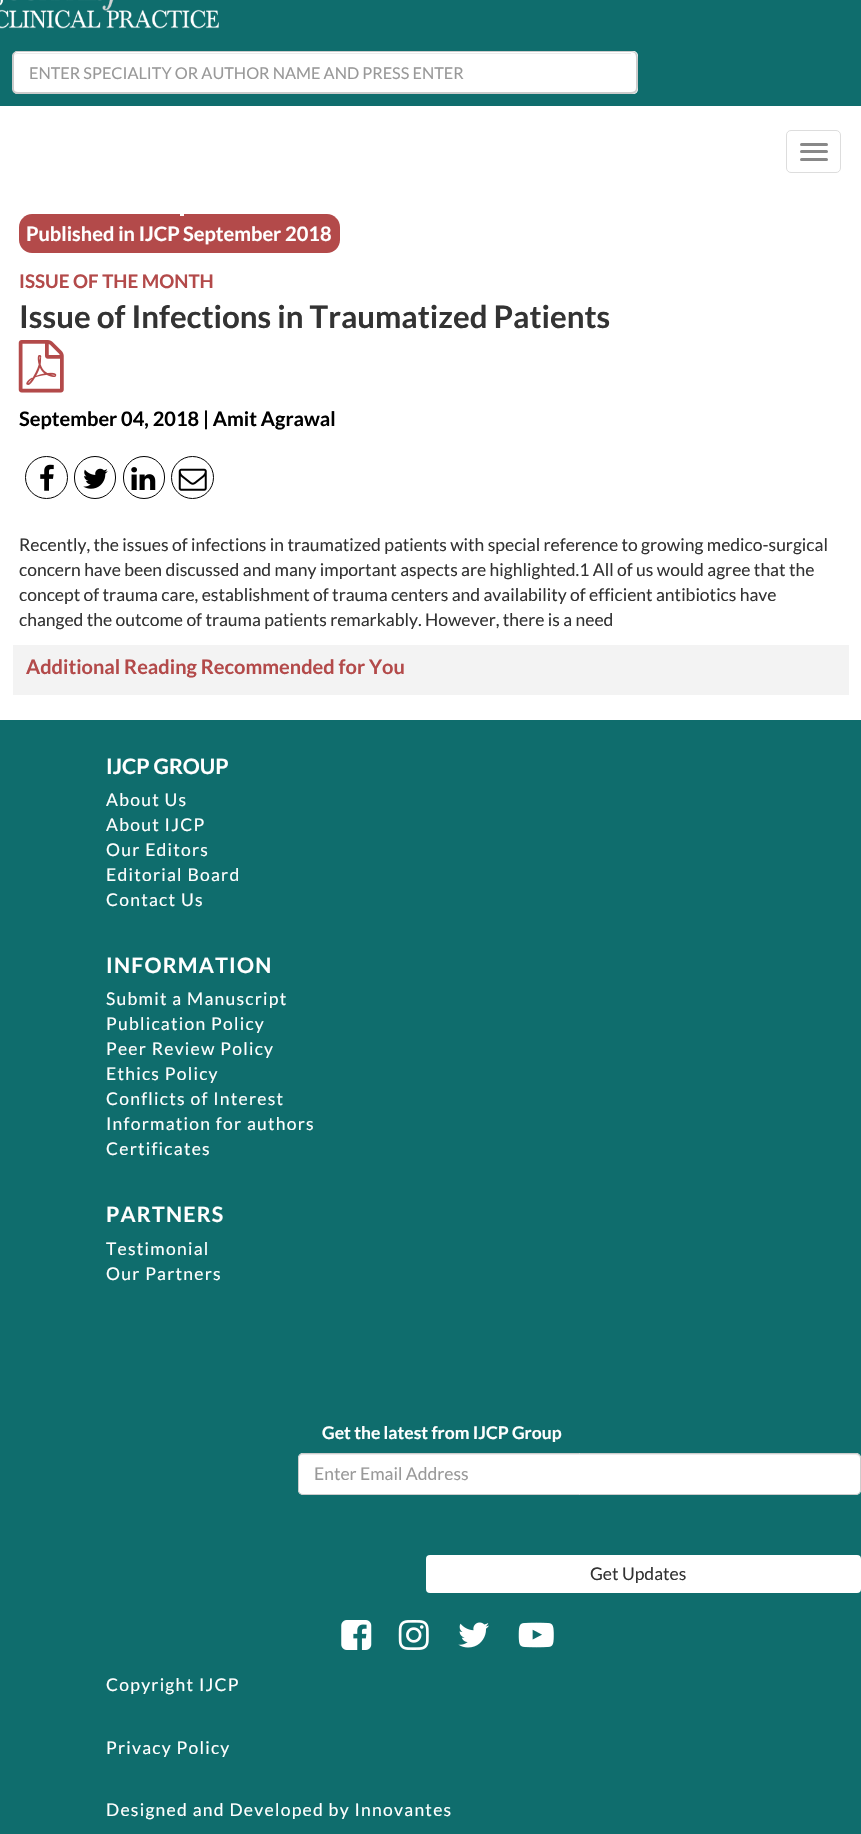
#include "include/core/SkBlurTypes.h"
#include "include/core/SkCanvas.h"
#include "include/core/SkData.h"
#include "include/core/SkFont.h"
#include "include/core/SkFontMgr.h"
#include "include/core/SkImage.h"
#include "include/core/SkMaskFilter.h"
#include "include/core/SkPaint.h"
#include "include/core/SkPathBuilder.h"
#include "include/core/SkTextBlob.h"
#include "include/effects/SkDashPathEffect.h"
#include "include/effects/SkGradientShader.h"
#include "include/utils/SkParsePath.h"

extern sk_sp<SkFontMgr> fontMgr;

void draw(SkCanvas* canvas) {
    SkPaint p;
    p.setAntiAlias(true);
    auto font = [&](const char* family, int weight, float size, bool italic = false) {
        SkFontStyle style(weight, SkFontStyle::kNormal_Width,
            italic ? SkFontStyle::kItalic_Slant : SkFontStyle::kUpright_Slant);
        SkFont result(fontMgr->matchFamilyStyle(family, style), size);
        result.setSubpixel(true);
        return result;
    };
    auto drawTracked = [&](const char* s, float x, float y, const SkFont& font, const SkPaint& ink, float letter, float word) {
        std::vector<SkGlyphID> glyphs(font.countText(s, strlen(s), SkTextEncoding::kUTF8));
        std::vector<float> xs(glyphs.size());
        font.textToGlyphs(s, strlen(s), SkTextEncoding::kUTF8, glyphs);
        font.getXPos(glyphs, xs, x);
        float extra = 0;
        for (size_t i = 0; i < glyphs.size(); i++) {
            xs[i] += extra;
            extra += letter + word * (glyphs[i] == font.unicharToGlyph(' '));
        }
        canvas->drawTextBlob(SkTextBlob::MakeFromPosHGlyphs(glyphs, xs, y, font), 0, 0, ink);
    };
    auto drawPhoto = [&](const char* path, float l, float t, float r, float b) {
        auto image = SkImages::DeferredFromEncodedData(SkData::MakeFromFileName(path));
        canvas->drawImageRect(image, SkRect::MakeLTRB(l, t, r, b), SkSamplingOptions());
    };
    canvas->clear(0xFFFFFFFF);
    p.setColor(0xFF0F6D6D);
    canvas->drawRect(SkRect::MakeLTRB(0, 0, 861, 106), p);
    drawPhoto("media/1.png", 0, 0, 219, 29);
    p.setColor(0xFFFFFFFF);
    canvas->drawPath(SkPathBuilder().moveTo(18, 51).lineTo(631, 51).lineTo(631, 94).lineTo(18, 94).cubicTo(15, 94, 13, 92, 13, 89).lineTo(13, 56).cubicTo(13, 53, 15, 51, 18, 51).close().detach(), p);
    p.setColor(0xFFECECEC);
    canvas->drawPath(SkPathBuilder().moveTo(18, 54).lineTo(631, 54).lineTo(631, 53).lineTo(18, 53).cubicTo(15, 53, 14, 55, 14, 58).cubicTo(14, 55, 15, 54, 18, 54).close().detach(), p);
    p.setColor(0xFFCCCCCC);
    canvas->drawPath(SkPathBuilder(SkPathFillType::kEvenOdd).moveTo(18, 51).lineTo(631, 51).lineTo(631, 94).lineTo(18, 94).cubicTo(15, 94, 12, 92, 12, 89).lineTo(12, 56).cubicTo(12, 53, 15, 51, 18, 51).close().moveTo(18, 52).lineTo(631, 52).lineTo(631, 92).lineTo(18, 92).cubicTo(15, 92, 14, 91, 14, 89).lineTo(14, 56).cubicTo(14, 54, 15, 52, 18, 52).close().detach(), p);
    auto font1 = font("Lato", 400, 16.25f);
    p.setColor(0xFF999999);
    canvas->drawString("ENTER SPECIALITY OR AUTHOR NAME AND PRESS ENTER", 29, 79, font1, p);
    p.setColor(0xFFFFFFFF);
    canvas->drawPath(SkPathBuilder().moveTo(631, 51).lineTo(633, 51).cubicTo(636, 51, 638, 53, 638, 56).lineTo(638, 89).cubicTo(638, 92, 636, 94, 633, 94).lineTo(631, 94).close().detach(), p);
    p.setColor(0xFFCCCCCC);
    canvas->drawPath(SkPathBuilder(SkPathFillType::kEvenOdd).moveTo(631, 51).cubicTo(638, 51, 638, 56, 638, 62).lineTo(638, 83).cubicTo(638, 89, 638, 94, 631, 94).close().moveTo(631, 52).cubicTo(637, 52, 636, 57, 636, 62).lineTo(636, 83).cubicTo(636, 88, 637, 92, 631, 92).close().detach(), p);
    p.setStyle(SkPaint::kStroke_Style);
    p.setStrokeWidth(1);
    p.setColor(0xFFDDDDDD);
    canvas->drawRoundRect(SkRect::MakeLTRB(786.5f, 130.5f, 840.5f, 172.5f), 4.5f, 4.5f, p);
    p.setStyle(SkPaint::kFill_Style);
    p.setColor(0xFF888888);
    canvas->drawRoundRect(SkRect::MakeLTRB(800, 143, 828, 146), 1.5f, 1.5f, p);
    canvas->drawRoundRect(SkRect::MakeLTRB(800, 150, 828, 153), 1.5f, 1.5f, p);
    canvas->drawRoundRect(SkRect::MakeLTRB(800, 158, 828, 161), 1.5f, 1.5f, p);
    p.setColor(0xFFB34A4A);
    canvas->drawPath(SkPathBuilder().moveTo(32, 214).lineTo(180, 214).lineTo(180, 253).lineTo(32, 253).cubicTo(25, 253, 19, 247, 19, 240).lineTo(19, 227).cubicTo(19, 220, 25, 214, 32, 214).close().detach(), p);
    auto font2 = font("Lato", 700, 20);
    p.setColor(0xFFFFFFFF);
    canvas->drawString("Published in IJCP", 26, 241, font2, p);
    p.setColor(0xFFB34A4A);
    canvas->drawRect(SkRect::MakeLTRB(180, 216, 184, 253), p);
    canvas->drawPath(SkPathBuilder().moveTo(184, 214).lineTo(327, 214).cubicTo(334, 214, 340, 220, 340, 227).lineTo(340, 240).cubicTo(340, 247, 334, 253, 327, 253).lineTo(184, 253).close().detach(), p);
    p.setColor(0xFFFFFFFF);
    canvas->drawString("September 2018", 183, 241, font2, p);
    auto font3 = font("Lato", 700, 18.75f);
    p.setColor(0xFFB34A4A);
    canvas->drawString("ISSUE OF THE MONTH", 19, 288, font3, p);
    auto font4 = font("Lato", 700, 31.25f);
    p.setColor(0xFF333333);
    canvas->drawString("Issue of Infections in Traumatized Patients", 19, 328, font4, p);
    drawPhoto("media/2.png", 18, 340, 64, 393);
    p.setColor(0xFF000000);
    canvas->drawString("September 04, 2018 | Amit Agrawal", 19, 426, font2, p);
    p.setStyle(SkPaint::kStroke_Style);
    canvas->drawCircle(46.5f, 477.5f, 21, p);
    drawPhoto("media/3.png", 40, 464, 54, 491);
    canvas->drawRoundRect(SkRect::MakeLTRB(74.5f, 456.5f, 115.5f, 498.5f), 20.5f, 20.5f, p);
    drawPhoto("media/4.png", 83, 468, 108, 489);
    canvas->drawRoundRect(SkRect::MakeLTRB(123.5f, 456.5f, 164.5f, 498.5f), 20.5f, 20.5f, p);
    drawPhoto("media/5.png", 131, 467, 156, 490);
    canvas->drawCircle(192.5f, 477.5f, 21, p);
    drawPhoto("media/6.png", 178, 468, 207, 491);
    auto font5 = font("Lato", 400, 17.5f);
    p.setStyle(SkPaint::kFill_Style);
    p.setColor(0xFF333333);
    {
        const struct { const char* s; float x, y; } items[] = {
            {"Recently, the issues of infections in traumatized patients with special reference to growing medico-surgical", 19, 551},
            {"concern have been discussed and many important aspects are highlighted.1 All of us would agree that the", 19, 576},
            {"concept of trauma care, establishment of trauma centers and availability of efficient antibiotics have", 19, 601},
            {"changed the outcome of trauma patients remarkably. However, there is a need", 19, 626},
        };
        for (auto [s, x, y] : items) {
            canvas->drawString(s, x, y, font5, p);
        }
    }
    p.setColor(0xFFF3F3F3);
    canvas->drawRect(SkRect::MakeLTRB(13, 645, 849, 695), p);
    p.setColor(0xFFB34A4A);
    canvas->drawString("Additional Reading Recommended for You", 26, 674, font2, p);
    p.setColor(0xFF0F6D6D);
    canvas->drawRect(SkRect::MakeLTRB(0, 720, 861, 1834), p);
    auto font6 = font("Lato", 700, 21.25f);
    p.setColor(0xFFFFFFFF);
    canvas->drawString("IJCP GROUP", 106, 774, font6, p);
    {
        const struct { const char* s; float x, y; } items[] = {
            {"About Us", 106, 806},
            {"About IJCP", 106, 831},
            {"Our Editors", 106, 856},
            {"Editorial Board", 106, 881},
            {"Contact Us", 106, 906},
        };
        for (auto [s, x, y] : items) {
            drawTracked(s, x, y, font5, p, 1.25f, 0);
        }
    }
    drawTracked("INFORMATION", 106, 973, font6, p, 1.25f, 0);
    {
        const struct { const char* s; float x, y; } items[] = {
            {"Submit a Manuscript", 106, 1005},
            {"Publication Policy", 106, 1030},
            {"Peer Review Policy", 106, 1055},
            {"Ethics Policy", 106, 1080},
            {"Conflicts of Interest", 106, 1105},
            {"Information for authors", 106, 1130},
            {"Certificates", 106, 1155},
        };
        for (auto [s, x, y] : items) {
            drawTracked(s, x, y, font5, p, 1.25f, 0);
        }
    }
    drawTracked("PARTNERS", 106, 1222, font6, p, 1.25f, 0);
    drawTracked("Testimonial", 106, 1255, font5, p, 1.25f, 0);
    drawTracked("Our Partners", 106, 1280, font5, p, 1.25f, 0);
    auto font7 = font("Lato", 700, 17.5f);
    canvas->drawString("Get the latest from IJCP Group", 322, 1439, font7, p);
    canvas->drawRoundRect(SkRect::MakeLTRB(298, 1453, 861, 1495), 5, 5, p);
    p.setColor(0xFFECECEC);
    canvas->drawPath(SkPathBuilder().moveTo(302, 1455).lineTo(856, 1455).cubicTo(858, 1455, 860, 1457, 860, 1459).cubicTo(860, 1456, 859, 1454, 856, 1454).lineTo(303, 1454).cubicTo(300, 1454, 299, 1456, 299, 1459).cubicTo(299, 1457, 300, 1455, 302, 1455).close().detach(), p);
    p.setStyle(SkPaint::kStroke_Style);
    p.setColor(0xFFCCCCCC);
    canvas->drawRoundRect(SkRect::MakeLTRB(298.5f, 1453.5f, 860.5f, 1494.5f), 4.5f, 4.5f, p);
    p.setStyle(SkPaint::kFill_Style);
    p.setColor(0xFF999999);
    canvas->drawString("Enter Email Address", 314, 1480, font5, p);
    p.setColor(0xFFFFFFFF);
    canvas->drawRoundRect(SkRect::MakeLTRB(426, 1555, 861, 1593), 4, 4, p);
    p.setColor(0xFF333333);
    canvas->drawString("Get Updates", 590, 1580, font5, p);
    drawPhoto("media/7.png", 341, 1620, 372, 1650);
    drawPhoto("media/8.png", 398, 1620, 429, 1650);
    drawPhoto("media/9.png", 458, 1622, 489, 1648);
    drawPhoto("media/10.png", 518, 1622, 554, 1648);
    p.setColor(0xFFFFFFFF);
    {
        const struct { const char* s; float x, y; } items[] = {
            {"Copyright IJCP", 106, 1691},
            {"Privacy Policy", 106, 1754},
            {"Designed and Developed by Innovantes", 106, 1816},
        };
        for (auto [s, x, y] : items) {
            drawTracked(s, x, y, font5, p, 1.25f, 0);
        }
    }
}
